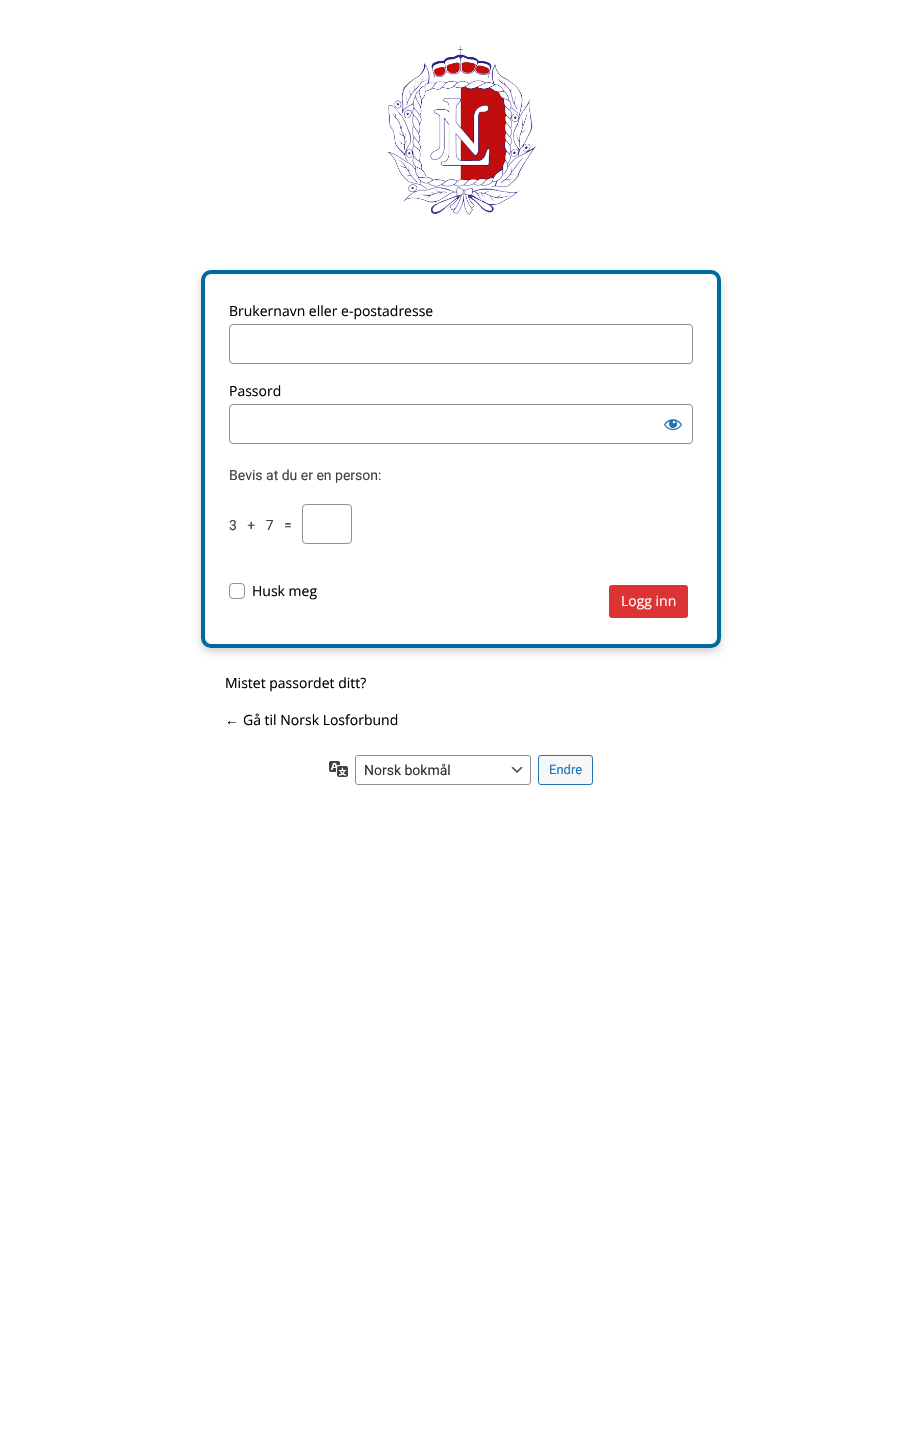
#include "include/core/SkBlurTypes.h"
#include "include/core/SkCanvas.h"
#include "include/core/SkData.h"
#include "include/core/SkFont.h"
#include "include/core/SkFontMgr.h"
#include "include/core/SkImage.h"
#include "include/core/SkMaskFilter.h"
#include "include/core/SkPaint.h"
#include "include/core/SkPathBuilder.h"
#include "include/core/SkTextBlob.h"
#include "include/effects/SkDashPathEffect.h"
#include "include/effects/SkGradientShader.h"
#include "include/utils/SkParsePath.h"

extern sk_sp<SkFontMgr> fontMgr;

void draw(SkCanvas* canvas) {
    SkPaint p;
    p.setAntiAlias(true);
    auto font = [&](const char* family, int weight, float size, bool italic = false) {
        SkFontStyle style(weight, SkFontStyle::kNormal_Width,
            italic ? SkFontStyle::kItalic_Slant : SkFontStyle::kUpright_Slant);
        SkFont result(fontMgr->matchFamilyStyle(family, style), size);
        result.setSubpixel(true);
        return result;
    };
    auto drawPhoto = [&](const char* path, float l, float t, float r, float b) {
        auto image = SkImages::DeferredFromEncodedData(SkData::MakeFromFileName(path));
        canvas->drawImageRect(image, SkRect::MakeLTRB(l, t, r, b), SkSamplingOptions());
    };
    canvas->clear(0xFFFFFFFF);
    drawPhoto("media/1.png", 387, 46, 537, 215);
    p.setColor(0xFFC8C8C8);
    p.setMaskFilter(SkMaskFilter::MakeBlur(kNormal_SkBlurStyle, 5));
    canvas->drawRoundRect(SkRect::MakeLTRB(202, 275, 720, 651), 9, 9, p);
    p.setMaskFilter(nullptr);
    p.setColor(0xFFFFFFFF);
    canvas->drawRoundRect(SkRect::MakeLTRB(203, 272, 719, 646), 8, 8, p);
    p.setStyle(SkPaint::kStroke_Style);
    p.setStrokeWidth(4);
    p.setColor(0xFF0069A0);
    canvas->drawRoundRect(SkRect::MakeLTRB(203, 272, 719, 646), 8, 8, p);
    auto font1 = font("Open Sans", 400, 14);
    p.setStyle(SkPaint::kFill_Style);
    p.setColor(0xFF000000);
    canvas->drawString("Brukernavn eller e-postadresse", 229, 316, font1, p);
    p.setStyle(SkPaint::kStroke_Style);
    p.setStrokeWidth(1);
    p.setColor(0xFF8C8F94);
    canvas->drawRoundRect(SkRect::MakeLTRB(229.5f, 324.5f, 692.5f, 363.5f), 3.5f, 3.5f, p);
    p.setStyle(SkPaint::kFill_Style);
    p.setColor(0xFF000000);
    canvas->drawString("Passord", 229, 396, font1, p);
    p.setStyle(SkPaint::kStroke_Style);
    p.setColor(0xFF8C8F94);
    canvas->drawRoundRect(SkRect::MakeLTRB(229.5f, 404.5f, 692.5f, 443.5f), 3.5f, 3.5f, p);
    drawPhoto("media/2.png", 664, 419, 682, 431);
    auto font2 = font("Roboto", 400, 14);
    p.setStyle(SkPaint::kFill_Style);
    p.setColor(0xFF3C434A);
    canvas->drawString("Bevis at du er en person:", 229, 480, font2, p);
    canvas->drawString("3   +   7   =", 229, 530, font2, p);
    p.setStyle(SkPaint::kStroke_Style);
    p.setColor(0xFF8C8F94);
    canvas->drawRoundRect(SkRect::MakeLTRB(302.5f, 504.5f, 351.5f, 543.5f), 3.5f, 3.5f, p);
    canvas->drawRoundRect(SkRect::MakeLTRB(229.5f, 583.5f, 244.5f, 598.5f), 3.5f, 3.5f, p);
    p.setStyle(SkPaint::kFill_Style);
    p.setColor(0xFF000000);
    canvas->drawString("Husk meg", 252, 596, font1, p);
    p.setColor(0xFFDD3333);
    canvas->drawRoundRect(SkRect::MakeLTRB(609, 585, 688, 618), 3, 3, p);
    p.setColor(0xFFFFFFFF);
    canvas->drawString("Logg inn", 621, 606, font1, p);
    p.setColor(0xFF000000);
    canvas->drawString("Mistet passordet ditt?", 225, 688, font1, p);
    auto font3 = font("Liberation Serif", 400, 14);
    canvas->drawString("←", 225, 725, font3, p);
    canvas->drawString("Gå til Norsk Losforbund", 243, 725, font1, p);
    drawPhoto("media/3.png", 329, 761, 348, 777);
    drawPhoto("media/4.png", 511, 766, 523, 773);
    p.setStyle(SkPaint::kStroke_Style);
    p.setColor(0xFF8C8F94);
    canvas->drawRoundRect(SkRect::MakeLTRB(355.5f, 755.5f, 530.5f, 784.5f), 2.5f, 2.5f, p);
    p.setStyle(SkPaint::kFill_Style);
    p.setColor(0xFF2C3338);
    canvas->drawString("Norsk bokmål", 364, 775, font2, p);
    p.setColor(0xFFF6F7F7);
    canvas->drawRoundRect(SkRect::MakeLTRB(538.5f, 755.5f, 592.5f, 784.5f), 2.5f, 2.5f, p);
    p.setStyle(SkPaint::kStroke_Style);
    p.setColor(0xFF2271B1);
    canvas->drawRoundRect(SkRect::MakeLTRB(538.5f, 755.5f, 592.5f, 784.5f), 2.5f, 2.5f, p);
    auto font4 = font("Roboto", 400, 13);
    p.setStyle(SkPaint::kFill_Style);
    canvas->drawString("Endre", 549, 774, font4, p);
}
